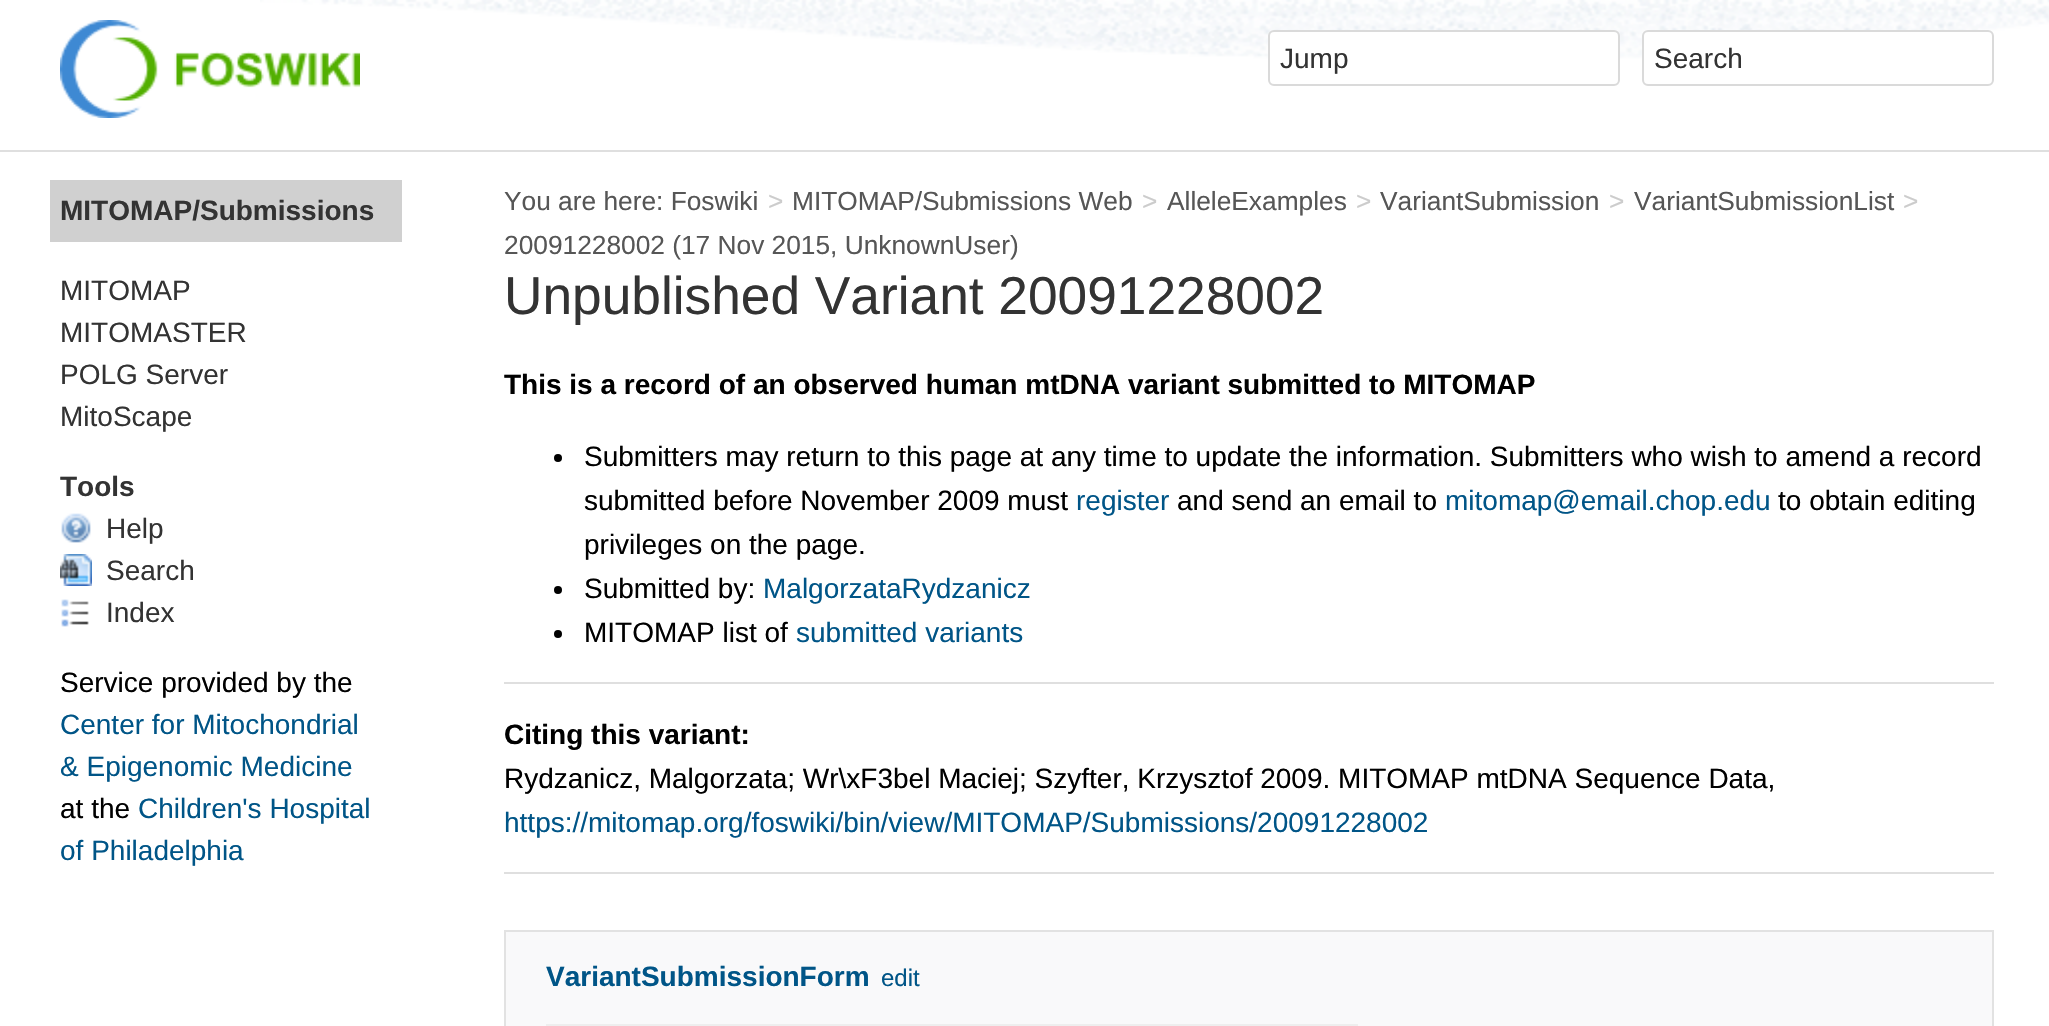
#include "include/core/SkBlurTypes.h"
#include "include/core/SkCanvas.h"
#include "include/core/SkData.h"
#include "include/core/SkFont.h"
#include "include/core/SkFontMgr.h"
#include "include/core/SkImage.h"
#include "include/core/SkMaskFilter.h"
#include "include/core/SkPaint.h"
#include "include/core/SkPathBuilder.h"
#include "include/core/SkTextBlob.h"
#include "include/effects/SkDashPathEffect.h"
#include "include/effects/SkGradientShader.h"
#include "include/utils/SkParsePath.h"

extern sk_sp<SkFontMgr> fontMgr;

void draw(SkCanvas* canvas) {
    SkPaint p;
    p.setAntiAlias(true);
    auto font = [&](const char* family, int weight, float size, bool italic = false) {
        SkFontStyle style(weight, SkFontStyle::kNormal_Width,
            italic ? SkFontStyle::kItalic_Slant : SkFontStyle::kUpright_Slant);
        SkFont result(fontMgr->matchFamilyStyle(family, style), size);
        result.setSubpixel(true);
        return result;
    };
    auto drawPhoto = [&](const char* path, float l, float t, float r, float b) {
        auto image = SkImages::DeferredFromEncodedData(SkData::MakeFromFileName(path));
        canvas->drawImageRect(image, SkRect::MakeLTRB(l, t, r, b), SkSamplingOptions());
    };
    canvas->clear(0xFFDFDFDF);
    p.setColor(0xFFFFFFFF);
    canvas->drawRect(SkRect::MakeLTRB(0, 0, 2049, 150), p);
    drawPhoto("media/1.png", 260, 0, 2049, 61);
    drawPhoto("media/2.png", 60, 20, 360, 118);
    canvas->drawRoundRect(SkRect::MakeLTRB(1269, 31, 1619, 85), 5, 5, p);
    p.setStyle(SkPaint::kStroke_Style);
    p.setStrokeWidth(2);
    p.setColor(0xFFDADADA);
    canvas->drawRoundRect(SkRect::MakeLTRB(1269, 31, 1619, 85), 5, 5, p);
    auto font1 = font("Liberation Sans", 400, 28);
    p.setStyle(SkPaint::kFill_Style);
    p.setColor(0xFF333333);
    canvas->drawString("Jump", 1280, 68, font1, p);
    p.setColor(0xFFFFFFFF);
    canvas->drawRoundRect(SkRect::MakeLTRB(1643, 31, 1993, 85), 5, 5, p);
    p.setStyle(SkPaint::kStroke_Style);
    p.setColor(0xFFDADADA);
    canvas->drawRoundRect(SkRect::MakeLTRB(1643, 31, 1993, 85), 5, 5, p);
    p.setStyle(SkPaint::kFill_Style);
    p.setColor(0xFF333333);
    canvas->drawString("Search", 1654, 68, font1, p);
    p.setColor(0xFFFFFFFF);
    canvas->drawRect(SkRect::MakeLTRB(0, 152, 2049, 1026), p);
    p.setColor(0xFFD0D0D0);
    canvas->drawRect(SkRect::MakeLTRB(50, 180, 402, 242), p);
    auto font2 = font("Liberation Sans", 700, 28);
    p.setColor(0xFF333333);
    canvas->drawString("MITOMAP/Submissions", 60, 220, font2, p);
    {
        const struct { const char* s; float x, y; } items[] = {
            {"MITOMAP", 60, 300},
            {"MITOMASTER", 60, 342},
            {"POLG Server", 60, 384},
            {"MitoScape", 60, 426},
        };
        for (auto [s, x, y] : items) {
            canvas->drawString(s, x, y, font1, p);
        }
    }
    canvas->drawString("Tools", 60, 496, font2, p);
    drawPhoto("media/3.png", 61, 513, 91, 543);
    canvas->drawString("Help", 106, 538, font1, p);
    drawPhoto("media/4.png", 60, 554, 92, 586);
    canvas->drawString("Search", 106, 580, font1, p);
    drawPhoto("media/5.png", 61, 599, 89, 627);
    canvas->drawString("Index", 106, 622, font1, p);
    p.setColor(0xFF000000);
    canvas->drawString("Service provided by the", 60, 692, font1, p);
    p.setColor(0xFF005587);
    canvas->drawString("Center for Mitochondrial", 60, 734, font1, p);
    canvas->drawString("& Epigenomic Medicine", 60, 776, font1, p);
    p.setColor(0xFF000000);
    canvas->drawString("at the", 60, 818, font1, p);
    p.setColor(0xFF005587);
    canvas->drawString("Children's Hospital", 138, 818, font1, p);
    canvas->drawString("of Philadelphia", 60, 860, font1, p);
    auto font3 = font("Liberation Sans", 400, 26.3f);
    p.setColor(0xFF565656);
    canvas->drawString("You are here: Foswiki", 504, 210, font3, p);
    p.setColor(0xFFCCCCCC);
    canvas->drawString(">", 768, 210, font3, p);
    p.setColor(0xFF565656);
    canvas->drawString("MITOMAP/Submissions Web", 792, 210, font3, p);
    p.setColor(0xFFCCCCCC);
    canvas->drawString(">", 1142, 210, font3, p);
    p.setColor(0xFF565656);
    canvas->drawString("AlleleExamples", 1167, 210, font3, p);
    p.setColor(0xFFCCCCCC);
    canvas->drawString(">", 1356, 210, font3, p);
    p.setColor(0xFF565656);
    canvas->drawString("VariantSubmission", 1380, 210, font3, p);
    p.setColor(0xFFCCCCCC);
    canvas->drawString(">", 1609, 210, font3, p);
    p.setColor(0xFF565656);
    canvas->drawString("VariantSubmissionList", 1634, 210, font3, p);
    p.setColor(0xFFCCCCCC);
    canvas->drawString(">", 1903, 210, font3, p);
    p.setColor(0xFF565656);
    canvas->drawString("20091228002 (17 Nov 2015, UnknownUser)", 504, 254, font3, p);
    auto font4 = font("Liberation Sans", 400, 53.25f);
    p.setColor(0xFF333333);
    canvas->drawString("Unpublished Variant 20091228002", 504, 314, font4, p);
    p.setColor(0xFF000000);
    canvas->drawString("This is a record of an observed human mtDNA variant submitted to MITOMAP", 504, 394, font2, p);
    canvas->drawCircle(558, 458, 4, p);
    canvas->drawString("Submitters may return to this page at any time to update the information. Submitters who wish to amend a record", 584, 466, font1, p);
    canvas->drawString("submitted before November 2009 must", 584, 510, font1, p);
    p.setColor(0xFF005587);
    canvas->drawString("register", 1076, 510, font1, p);
    p.setColor(0xFF000000);
    canvas->drawString("and send an email to", 1177, 510, font1, p);
    p.setColor(0xFF005587);
    canvas->drawString("mitomap@email.chop.edu", 1445, 510, font1, p);
    p.setColor(0xFF000000);
    canvas->drawString("to obtain editing", 1778, 510, font1, p);
    canvas->drawString("privileges on the page.", 584, 554, font1, p);
    canvas->drawCircle(558, 590, 4, p);
    canvas->drawString("Submitted by:", 584, 598, font1, p);
    p.setColor(0xFF005587);
    canvas->drawString("MalgorzataRydzanicz", 763, 598, font1, p);
    p.setColor(0xFF000000);
    canvas->drawCircle(558, 634, 4, p);
    canvas->drawString("MITOMAP list of", 584, 642, font1, p);
    p.setColor(0xFF005587);
    canvas->drawString("submitted variants", 796, 642, font1, p);
    p.setColor(0xFFDFDFDF);
    canvas->drawRect(SkRect::MakeLTRB(504, 682, 1994, 684), p);
    p.setColor(0xFF000000);
    canvas->drawString("Citing this variant:", 504, 744, font2, p);
    canvas->drawString("Rydzanicz, Malgorzata; Wr\\xF3bel Maciej; Szyfter, Krzysztof 2009. MITOMAP mtDNA Sequence Data,", 504, 788, font1, p);
    p.setColor(0xFF005587);
    canvas->drawString("https://mitomap.org/foswiki/bin/view/MITOMAP/Submissions/20091228002", 504, 832, font1, p);
    p.setColor(0xFFDFDFDF);
    canvas->drawRect(SkRect::MakeLTRB(504, 872, 1994, 874), p);
    p.setColor(0xFFF9F9FA);
    canvas->drawRect(SkRect::MakeLTRB(505, 931, 1993, 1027), p);
    p.setStyle(SkPaint::kStroke_Style);
    p.setColor(0xFFE2E2E2);
    canvas->drawRect(SkRect::MakeLTRB(505, 931, 1993, 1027), p);
    p.setStyle(SkPaint::kFill_Style);
    p.setColor(0xFF005587);
    canvas->drawString("VariantSubmissionForm", 546, 986, font2, p);
    auto font5 = font("Liberation Sans", 400, 24);
    canvas->drawString("edit", 881, 986, font5, p);
    p.setColor(0xFFEEEEEE);
    canvas->drawRect(SkRect::MakeLTRB(546, 1024, 1358, 1026), p);
}
